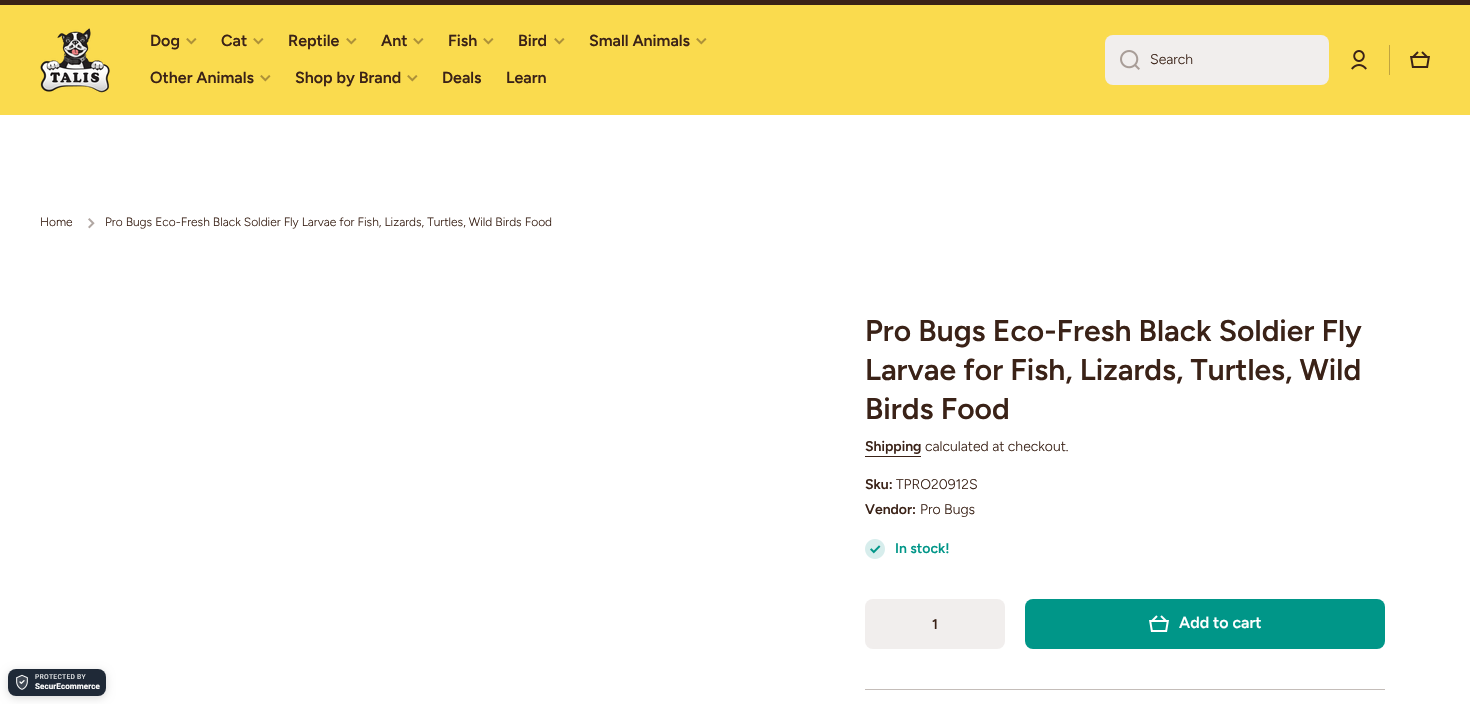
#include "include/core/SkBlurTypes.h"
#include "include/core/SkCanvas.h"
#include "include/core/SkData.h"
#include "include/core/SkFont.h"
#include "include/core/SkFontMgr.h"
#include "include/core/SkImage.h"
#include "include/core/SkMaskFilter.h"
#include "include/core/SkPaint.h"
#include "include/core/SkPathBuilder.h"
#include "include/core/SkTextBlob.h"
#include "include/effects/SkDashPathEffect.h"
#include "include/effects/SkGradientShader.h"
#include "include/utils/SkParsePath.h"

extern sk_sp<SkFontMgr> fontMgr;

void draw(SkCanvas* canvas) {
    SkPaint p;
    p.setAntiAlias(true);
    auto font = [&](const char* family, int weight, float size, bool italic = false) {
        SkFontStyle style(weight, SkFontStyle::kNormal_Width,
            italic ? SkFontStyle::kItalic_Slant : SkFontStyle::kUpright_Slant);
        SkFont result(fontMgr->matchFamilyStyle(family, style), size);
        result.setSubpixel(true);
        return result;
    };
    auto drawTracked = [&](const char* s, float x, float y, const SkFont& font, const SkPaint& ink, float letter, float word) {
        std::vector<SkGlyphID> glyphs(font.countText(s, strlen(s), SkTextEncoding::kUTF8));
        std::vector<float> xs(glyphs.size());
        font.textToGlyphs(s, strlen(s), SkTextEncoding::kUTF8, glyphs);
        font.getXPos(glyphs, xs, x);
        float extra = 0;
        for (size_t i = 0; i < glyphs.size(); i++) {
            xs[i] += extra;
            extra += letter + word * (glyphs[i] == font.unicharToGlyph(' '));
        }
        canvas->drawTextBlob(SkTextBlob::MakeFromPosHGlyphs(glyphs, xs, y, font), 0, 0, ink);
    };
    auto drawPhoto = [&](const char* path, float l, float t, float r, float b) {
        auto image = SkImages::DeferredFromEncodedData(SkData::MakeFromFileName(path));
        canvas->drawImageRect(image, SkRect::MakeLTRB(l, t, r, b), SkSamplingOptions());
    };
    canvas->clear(0xFFFFFFFF);
    p.setColor(0xFF3A2217);
    canvas->drawRect(SkRect::MakeLTRB(0, 0, 1470, 5), p);
    p.setColor(0xFFFADB4E);
    canvas->drawRect(SkRect::MakeLTRB(0, 5, 1470, 115), p);
    drawPhoto("media/1.png", 40, 28, 110, 93);
    auto font1 = font("Figtree", 600, 16);
    p.setColor(0xFF3A2217);
    canvas->drawString("Dog", 150, 46, font1, p);
    drawPhoto("media/2.png", 186, 38, 197, 45);
    canvas->drawString("Cat", 221, 46, font1, p);
    drawPhoto("media/2.png", 253, 38, 264, 45);
    canvas->drawString("Reptile", 288, 46, font1, p);
    drawPhoto("media/2.png", 346, 38, 357, 45);
    canvas->drawString("Ant", 381, 46, font1, p);
    drawPhoto("media/2.png", 413, 38, 424, 45);
    canvas->drawString("Fish", 448, 46, font1, p);
    drawPhoto("media/2.png", 483, 38, 494, 45);
    canvas->drawString("Bird", 518, 46, font1, p);
    drawPhoto("media/2.png", 554, 38, 565, 45);
    canvas->drawString("Small Animals", 589, 46, font1, p);
    drawPhoto("media/2.png", 696, 38, 707, 45);
    canvas->drawString("Other Animals", 150, 83, font1, p);
    drawPhoto("media/2.png", 260, 75, 271, 82);
    canvas->drawString("Shop by Brand", 295, 83, font1, p);
    drawPhoto("media/2.png", 407, 75, 418, 82);
    canvas->drawString("Deals", 442, 83, font1, p);
    canvas->drawString("Learn", 506, 83, font1, p);
    p.setColor(0xFFF1EEED);
    canvas->drawRoundRect(SkRect::MakeLTRB(1105, 35, 1329, 85), 8, 8, p);
    drawPhoto("media/3.png", 1120, 50, 1140, 70);
    auto font2 = font("Figtree", 300, 14);
    p.setColor(0xFF3A2217);
    canvas->drawString("Search", 1150, 64, font2, p);
    drawPhoto("media/4.png", 1351, 50, 1367, 70);
    p.setColor(0xFFC0A43E);
    canvas->drawRect(SkRect::MakeLTRB(1389, 45, 1390, 75), p);
    drawPhoto("media/5.png", 1410, 51, 1430, 68);
    auto font3 = font("Figtree", 300, 12);
    p.setColor(0xFF3A2217);
    canvas->drawString("Home", 40, 226, font3, p);
    drawPhoto("media/6.png", 88, 218, 95, 229);
    canvas->drawString("Pro Bugs Eco-Fresh Black Soldier Fly Larvae for Fish, Lizards, Turtles, Wild Birds Food", 105, 226, font3, p);
    auto font4 = font("Figtree", 600, 30);
    {
        const struct { const char* s; float x, y; } items[] = {
            {"Pro Bugs Eco-Fresh Black Soldier Fly", 865, 341},
            {"Larvae for Fish, Lizards, Turtles, Wild", 865, 380},
            {"Birds Food", 865, 419},
        };
        for (auto [s, x, y] : items) {
            canvas->drawString(s, x, y, font4, p);
        }
    }
    auto font5 = font("Figtree", 600, 14);
    canvas->drawString("Shipping", 865, 451, font5, p);
    canvas->drawRect(SkRect::MakeLTRB(865, 456, 921, 457), p);
    canvas->drawString("calculated at checkout.", 925, 451, font2, p);
    canvas->drawString("Sku:", 865, 489, font5, p);
    canvas->drawString("TPRO20912S", 896, 489, font2, p);
    canvas->drawString("Vendor:", 865, 514, font5, p);
    canvas->drawString("Pro Bugs", 920, 514, font2, p);
    drawPhoto("media/7.png", 865, 539, 885, 559);
    p.setColor(0xFF009688);
    canvas->drawString("In stock!", 895, 553, font5, p);
    p.setColor(0xFFF1EEED);
    canvas->drawRoundRect(SkRect::MakeLTRB(865, 599, 1005, 649), 8, 8, p);
    p.setColor(0xFF3A2217);
    canvas->drawString("1", 932, 629, font5, p);
    p.setColor(0xFF009688);
    canvas->drawRoundRect(SkRect::MakeLTRB(1025, 599, 1385, 649), 8, 8, p);
    drawPhoto("media/8.png", 1149, 615, 1169, 632);
    p.setColor(0xFFFFFFFF);
    canvas->drawString("Add to cart", 1179, 628, font1, p);
    p.setColor(0xFFC4BDB9);
    canvas->drawRect(SkRect::MakeLTRB(865, 689, 1385, 690), p);
    p.setColor(0x26000000);
    p.setMaskFilter(SkMaskFilter::MakeBlur(kNormal_SkBlurStyle, 4));
    canvas->drawRoundRect(SkRect::MakeLTRB(8, 671, 106, 698), 8, 8, p);
    p.setMaskFilter(nullptr);
    p.setColor(0xFF1F2937);
    canvas->drawRoundRect(SkRect::MakeLTRB(8, 669, 106, 696), 8, 8, p);
    drawPhoto("media/9.png", 16, 674, 28, 690);
    auto font6 = font("Roboto", 500, 6.75f);
    p.setColor(0xFFDDDFE1);
    drawTracked("PROTECTED BY", 35, 679, font6, p, 0.25f, 0);
    auto font7 = font("Roboto", 700, 8);
    p.setColor(0xFFFFFFFF);
    drawTracked("SecurEcommerce", 35, 689, font7, p, 0.1f, 0);
}
